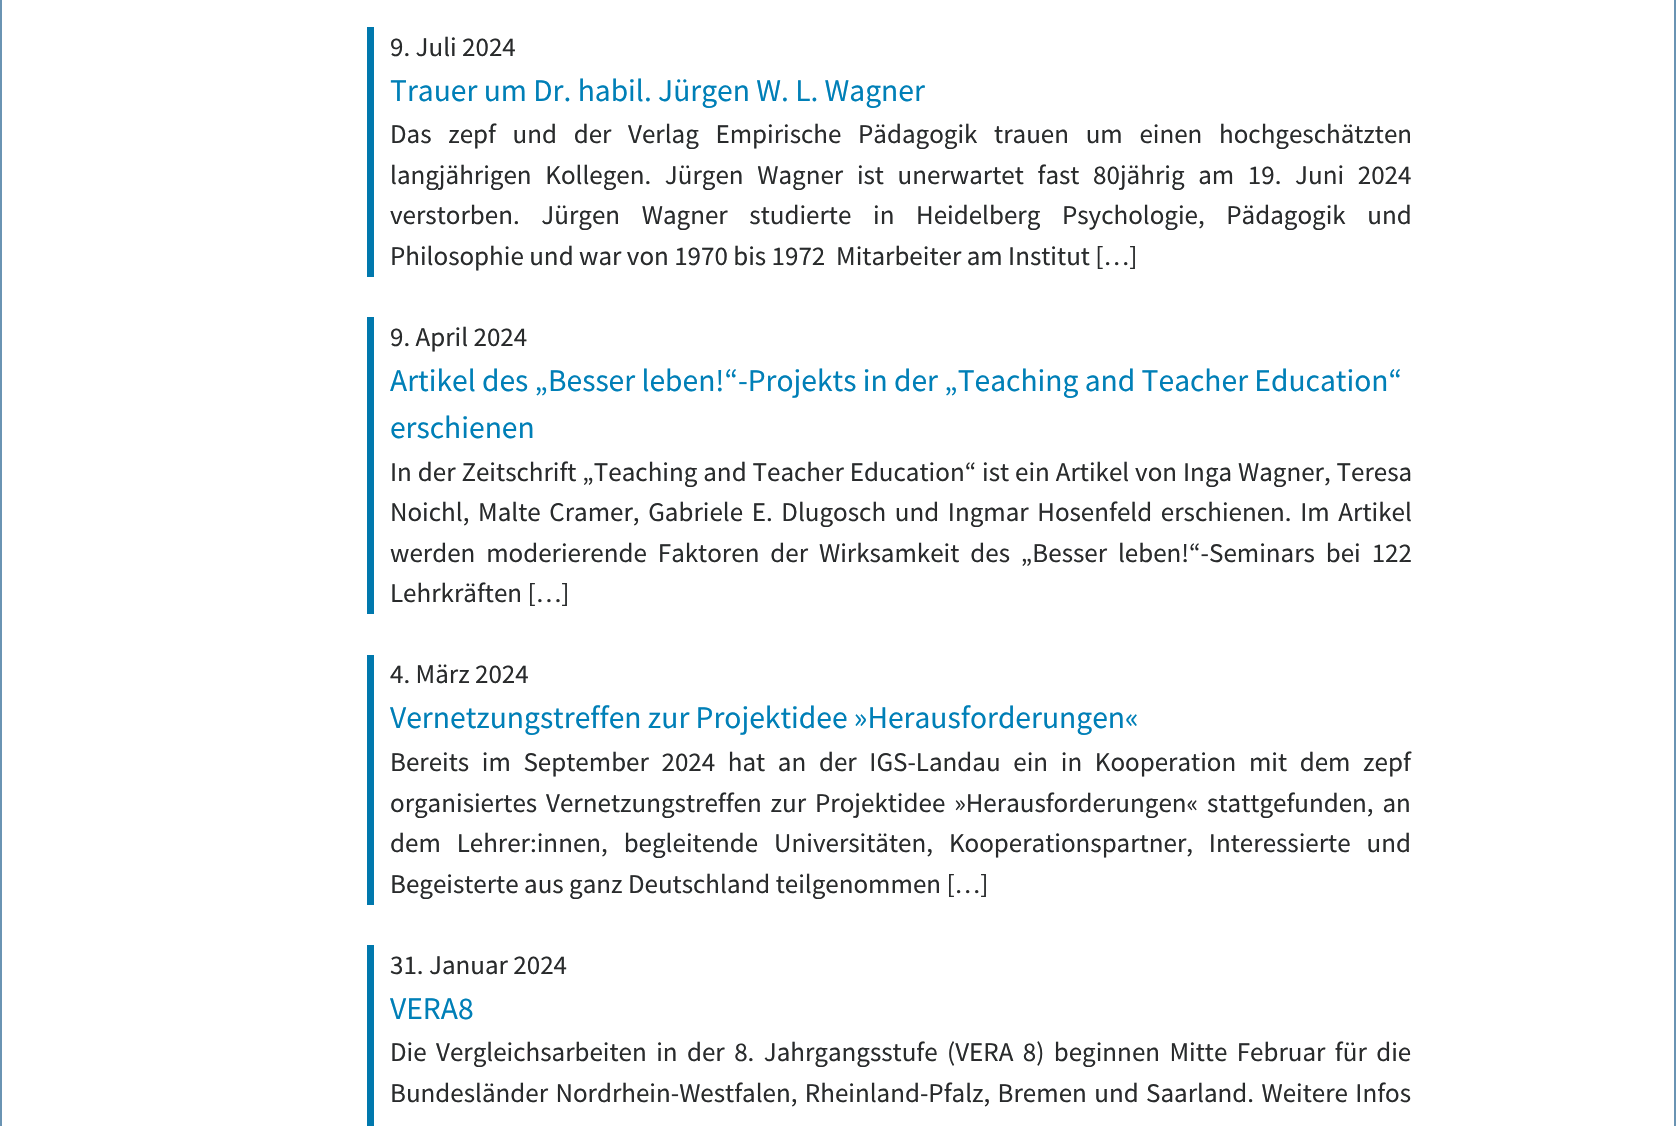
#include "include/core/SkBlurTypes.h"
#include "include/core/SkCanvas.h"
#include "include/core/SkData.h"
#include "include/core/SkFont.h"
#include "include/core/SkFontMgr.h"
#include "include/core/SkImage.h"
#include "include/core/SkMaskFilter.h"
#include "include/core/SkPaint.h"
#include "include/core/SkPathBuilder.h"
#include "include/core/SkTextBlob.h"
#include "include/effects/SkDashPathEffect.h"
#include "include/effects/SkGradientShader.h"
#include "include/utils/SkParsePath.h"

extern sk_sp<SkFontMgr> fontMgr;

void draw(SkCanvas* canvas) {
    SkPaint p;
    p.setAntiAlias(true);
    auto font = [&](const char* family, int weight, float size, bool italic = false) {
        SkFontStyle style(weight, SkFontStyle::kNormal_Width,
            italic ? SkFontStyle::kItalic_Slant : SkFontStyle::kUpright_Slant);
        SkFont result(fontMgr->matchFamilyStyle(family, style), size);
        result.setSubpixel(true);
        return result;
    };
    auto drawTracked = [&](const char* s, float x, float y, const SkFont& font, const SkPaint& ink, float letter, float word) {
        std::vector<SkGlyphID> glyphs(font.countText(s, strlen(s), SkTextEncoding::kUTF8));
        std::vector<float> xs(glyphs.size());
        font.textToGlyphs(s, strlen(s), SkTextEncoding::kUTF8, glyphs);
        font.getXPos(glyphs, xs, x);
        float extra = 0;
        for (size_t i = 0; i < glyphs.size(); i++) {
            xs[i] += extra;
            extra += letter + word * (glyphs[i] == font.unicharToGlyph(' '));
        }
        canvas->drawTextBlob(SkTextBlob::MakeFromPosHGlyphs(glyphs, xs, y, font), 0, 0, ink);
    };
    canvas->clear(0xFFFFFFFF);
    p.setStyle(SkPaint::kStroke_Style);
    p.setStrokeWidth(2);
    p.setColor(0xFF6A94B3);
    canvas->drawRect(SkRect::MakeLTRB(1, -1, 1675, 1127), p);
    p.setStyle(SkPaint::kFill_Style);
    p.setColor(0xFF0078AD);
    canvas->drawRect(SkRect::MakeLTRB(367, 27, 374, 277), p);
    auto font1 = font("Source Sans Pro", 400, 27);
    p.setColor(0xFF292B2C);
    canvas->drawString("9. Juli 2024", 390, 56, font1, p);
    auto font2 = font("Source Sans Pro", 400, 31.5f);
    p.setColor(0xFF007FB7);
    canvas->drawString("Trauer um Dr. habil. Jürgen W. L. Wagner", 390, 101, font2, p);
    p.setColor(0xFF292B2C);
    drawTracked("Das zepf und der Verlag Empirische Pädagogik trauen um einen hochgeschätzten", 390, 143, font1, p, 0, 11.25f);
    drawTracked("langjährigen Kollegen. Jürgen Wagner ist unerwartet fast 80jährig am 19. Juni 2024", 390, 184, font1, p, 0, 8.25f);
    drawTracked("verstorben. Jürgen Wagner studierte in Heidelberg Psychologie, Pädagogik und", 390, 224, font1, p, 0, 16.25f);
    canvas->drawString("Philosophie und war von 1970 bis 1972  Mitarbeiter am Institut […]", 390, 265, font1, p);
    p.setColor(0xFF0078AD);
    canvas->drawRect(SkRect::MakeLTRB(367, 317, 374, 614), p);
    p.setColor(0xFF292B2C);
    canvas->drawString("9. April 2024", 390, 346, font1, p);
    p.setColor(0xFF007FB7);
    canvas->drawString("Artikel des „Besser leben!“-Projekts in der „Teaching and Teacher Education“", 390, 391, font2, p);
    canvas->drawString("erschienen", 390, 438, font2, p);
    p.setColor(0xFF292B2C);
    drawTracked("In der Zeitschrift „Teaching and Teacher Education“ ist ein Artikel von Inga Wagner, Teresa", 390, 481, font1, p, 0, 0.5f);
    drawTracked("Noichl, Malte Cramer, Gabriele E. Dlugosch und Ingmar Hosenfeld erschienen. Im Artikel", 390, 521, font1, p, 0, 3.25f);
    drawTracked("werden moderierende Faktoren der Wirksamkeit des „Besser leben!“-Seminars bei 122", 390, 562, font1, p, 0, 5.5f);
    canvas->drawString("Lehrkräften […]", 390, 602, font1, p);
    p.setColor(0xFF0078AD);
    canvas->drawRect(SkRect::MakeLTRB(367, 655, 374, 905), p);
    p.setColor(0xFF292B2C);
    canvas->drawString("4. März 2024", 390, 683, font1, p);
    p.setColor(0xFF007FB7);
    canvas->drawString("Vernetzungstreffen zur Projektidee »Herausforderungen«", 390, 728, font2, p);
    p.setColor(0xFF292B2C);
    drawTracked("Bereits im September 2024 hat an der IGS-Landau ein in Kooperation mit dem zepf", 390, 771, font1, p, 0, 7.25f);
    drawTracked("organisiertes Vernetzungstreffen zur Projektidee »Herausforderungen« stattgefunden, an", 390, 812, font1, p, 0, 3.5f);
    drawTracked("dem Lehrer:innen, begleitende Universitäten, Kooperationspartner, Interessierte und", 390, 852, font1, p, 0, 10.5f);
    canvas->drawString("Begeisterte aus ganz Deutschland teilgenommen […]", 390, 893, font1, p);
    p.setColor(0xFF0078AD);
    canvas->drawRect(SkRect::MakeLTRB(367, 945, 374, 1126), p);
    p.setColor(0xFF292B2C);
    canvas->drawString("31. Januar 2024", 390, 974, font1, p);
    p.setColor(0xFF007FB7);
    canvas->drawString("VERA8", 390, 1019, font2, p);
    p.setColor(0xFF292B2C);
    drawTracked("Die Vergleichsarbeiten in der 8. Jahrgangsstufe (VERA 8) beginnen Mitte Februar für die", 390, 1061, font1, p, 0, 4);
    drawTracked("Bundesländer Nordrhein-Westfalen, Rheinland-Pfalz, Bremen und Saarland. Weitere Infos", 390, 1102, font1, p, 0, 2);
}
